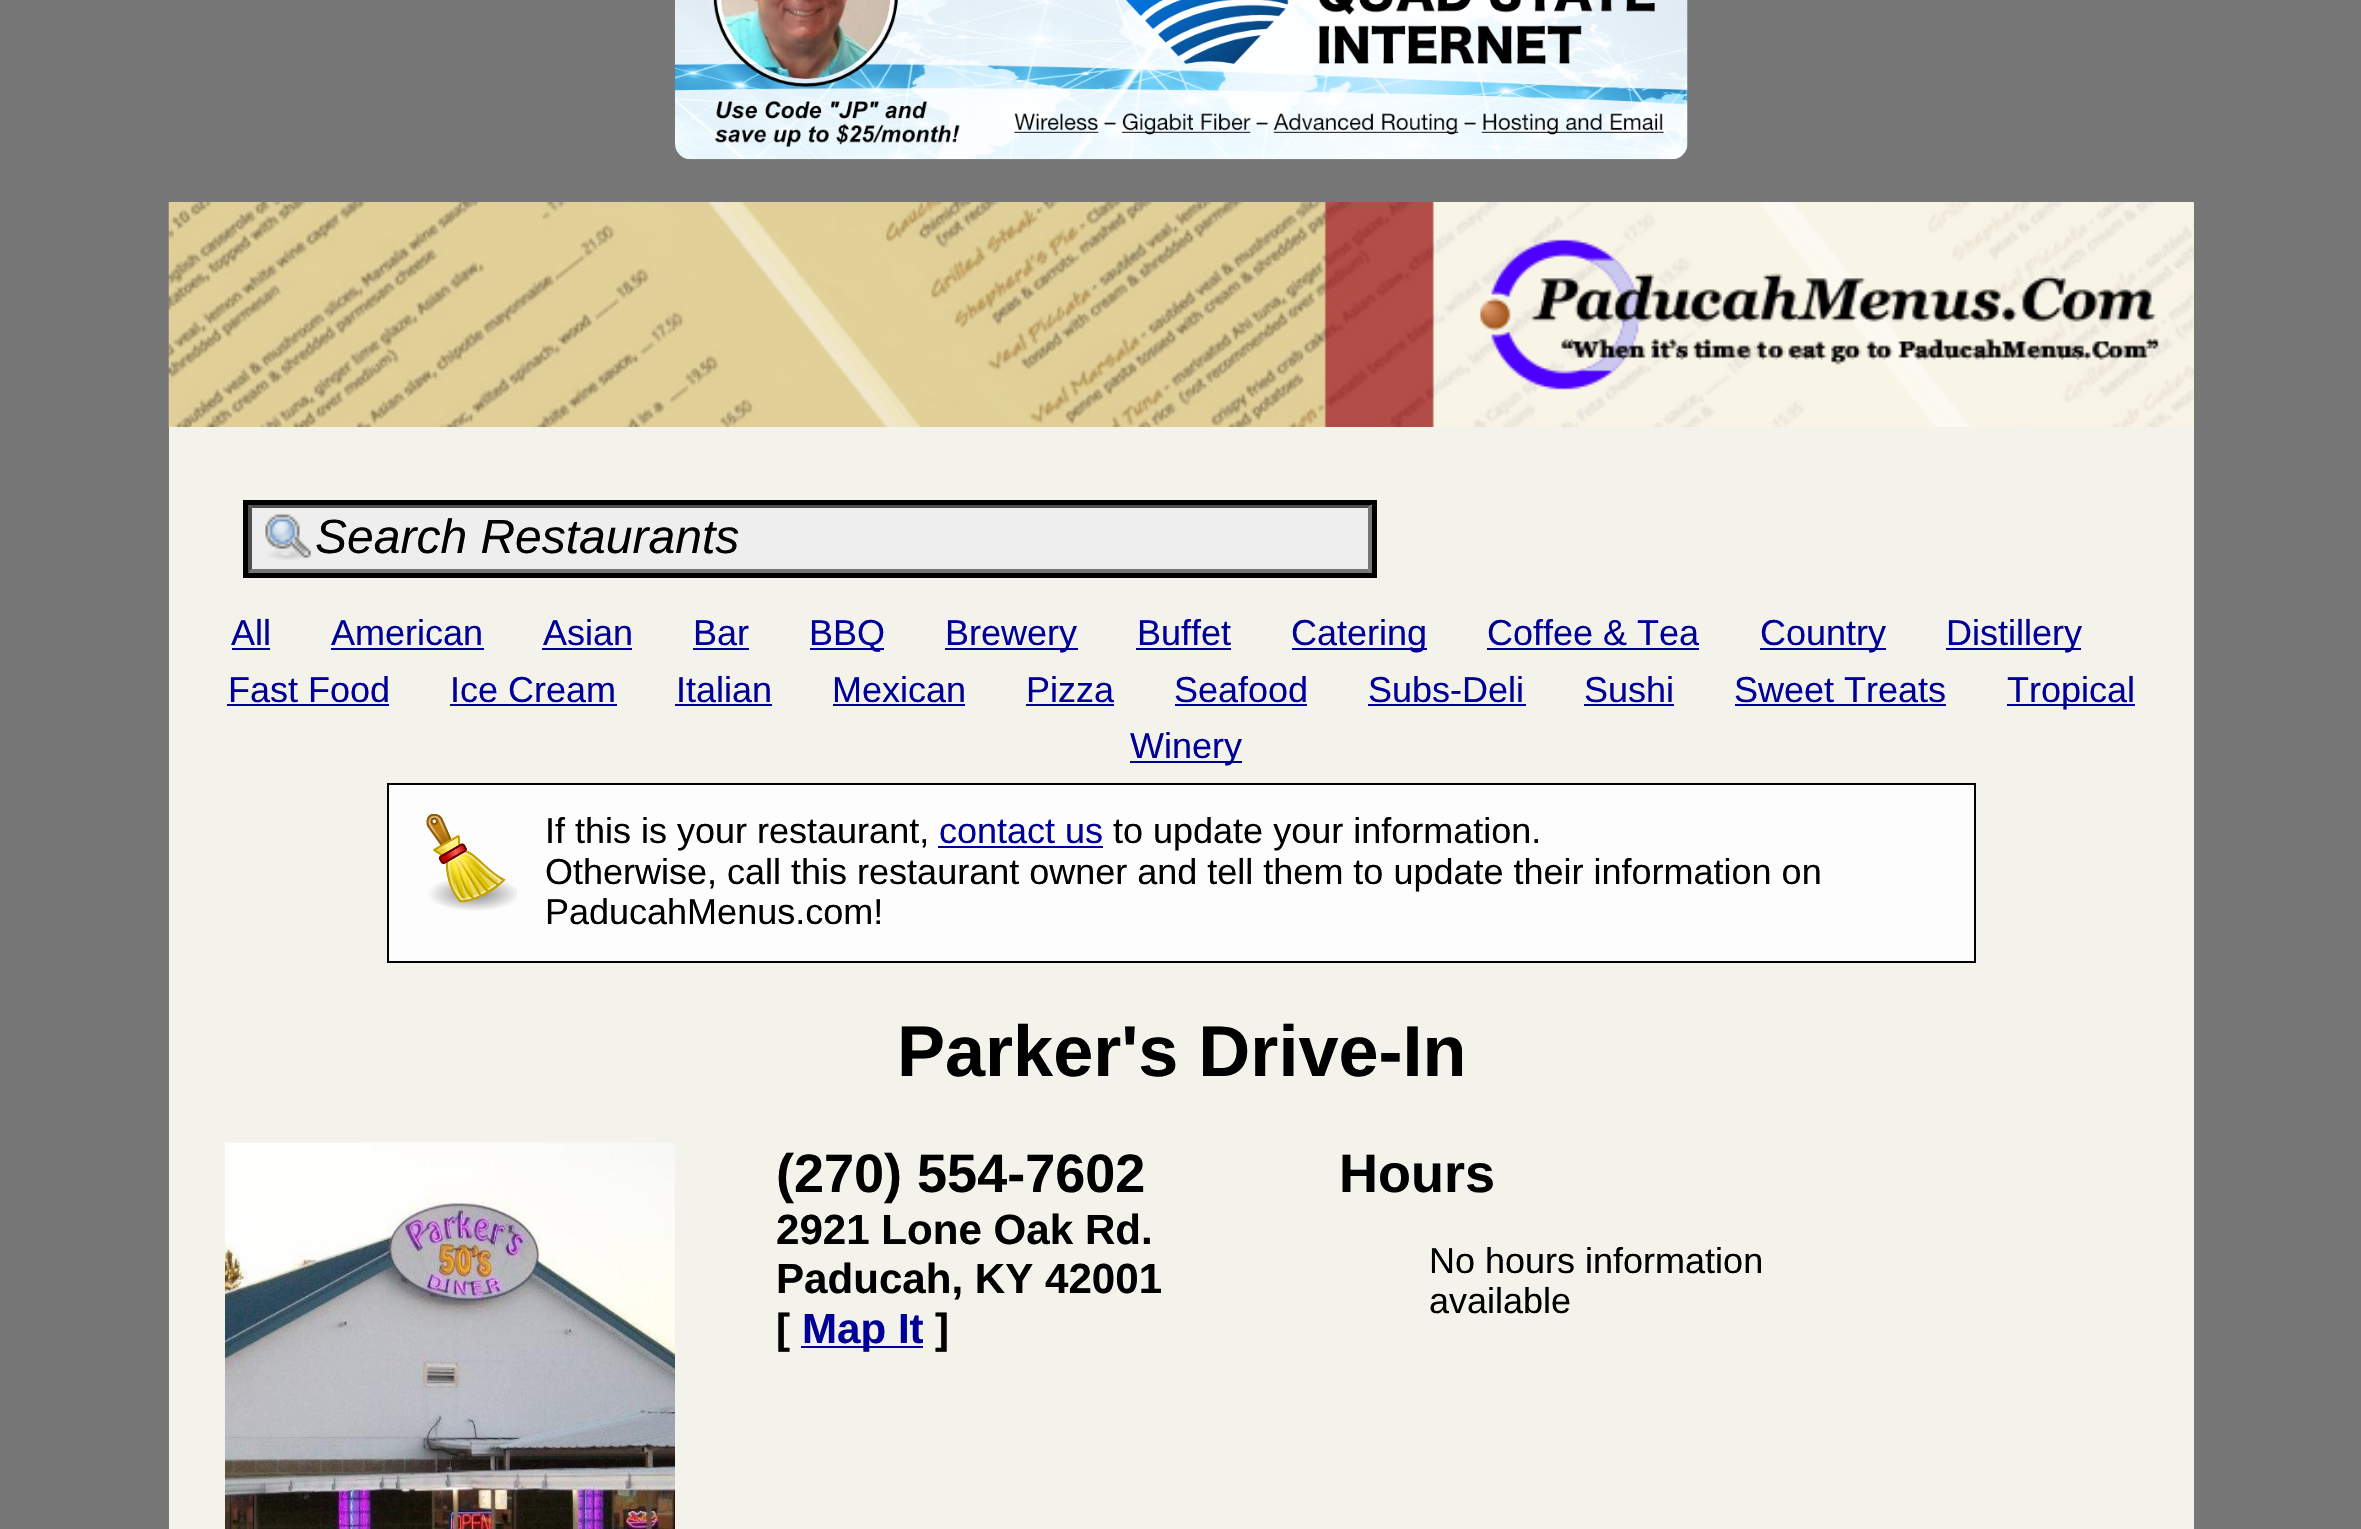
#include "include/core/SkBlurTypes.h"
#include "include/core/SkCanvas.h"
#include "include/core/SkData.h"
#include "include/core/SkFont.h"
#include "include/core/SkFontMgr.h"
#include "include/core/SkImage.h"
#include "include/core/SkMaskFilter.h"
#include "include/core/SkPaint.h"
#include "include/core/SkPathBuilder.h"
#include "include/core/SkTextBlob.h"
#include "include/effects/SkDashPathEffect.h"
#include "include/effects/SkGradientShader.h"
#include "include/utils/SkParsePath.h"

extern sk_sp<SkFontMgr> fontMgr;

void draw(SkCanvas* canvas) {
    SkPaint p;
    p.setAntiAlias(true);
    auto font = [&](const char* family, int weight, float size, bool italic = false) {
        SkFontStyle style(weight, SkFontStyle::kNormal_Width,
            italic ? SkFontStyle::kItalic_Slant : SkFontStyle::kUpright_Slant);
        SkFont result(fontMgr->matchFamilyStyle(family, style), size);
        result.setSubpixel(true);
        return result;
    };
    auto drawPhoto = [&](const char* path, float l, float t, float r, float b) {
        auto image = SkImages::DeferredFromEncodedData(SkData::MakeFromFileName(path));
        canvas->drawImageRect(image, SkRect::MakeLTRB(l, t, r, b), SkSamplingOptions());
    };
    canvas->clear(0xFF777777);
    drawPhoto("media/1.png", 675, 0, 1688, 160);
    p.setColor(0xFFF3F2EB);
    canvas->drawRect(SkRect::MakeLTRB(169, 203, 2194, 1529), p);
    drawPhoto("media/2.png", 168, 202, 2194, 427);
    p.setColor(0xFFEEEEEE);
    canvas->drawRect(SkRect::MakeLTRB(248, 505, 1372, 573), p);
    drawPhoto("media/3.png", 265, 514, 312, 560);
    p.setColor(0xFF4F4F4F);
    canvas->drawPath(SkPathBuilder().moveTo(248, 504).lineTo(1372, 504).lineTo(1368, 508).lineTo(252, 508).close().detach(), p);
    p.setColor(0xFF767676);
    canvas->drawPath(SkPathBuilder().moveTo(1372, 504).lineTo(1372, 574).lineTo(1368, 569).lineTo(1368, 508).close().detach(), p);
    canvas->drawPath(SkPathBuilder().moveTo(1372, 574).lineTo(248, 574).lineTo(252, 569).lineTo(1368, 569).close().detach(), p);
    p.setColor(0xFF4F4F4F);
    canvas->drawPath(SkPathBuilder().moveTo(248, 574).lineTo(248, 504).lineTo(252, 508).lineTo(252, 569).close().detach(), p);
    p.setStyle(SkPaint::kStroke_Style);
    p.setStrokeWidth(5);
    p.setColor(0xFF000000);
    canvas->drawRect(SkRect::MakeLTRB(245.5f, 502.5f, 1374.5f, 575.5f), p);
    auto font1 = font("Liberation Sans", 400, 48, true);
    p.setStyle(SkPaint::kFill_Style);
    canvas->drawString("Search Restaurants", 315, 553, font1, p);
    auto font2 = font("Liberation Sans", 400, 36);
    p.setColor(0xFF000099);
    canvas->drawString("All", 231, 645, font2, p);
    canvas->drawRect(SkRect::MakeLTRB(232, 648, 270, 650), p);
    canvas->drawString("American", 331, 645, font2, p);
    canvas->drawRect(SkRect::MakeLTRB(331, 648, 484, 650), p);
    canvas->drawString("Asian", 543, 645, font2, p);
    canvas->drawRect(SkRect::MakeLTRB(542, 648, 632, 650), p);
    canvas->drawString("Bar", 693, 645, font2, p);
    canvas->drawRect(SkRect::MakeLTRB(693, 648, 749, 650), p);
    canvas->drawRect(SkRect::MakeLTRB(810, 648, 884, 650), p);
    canvas->drawString("BBQ", 809, 645, font2, p);
    canvas->drawRect(SkRect::MakeLTRB(945, 648, 1078, 650), p);
    canvas->drawString("Brewery", 945, 645, font2, p);
    canvas->drawString("Buffet", 1137, 645, font2, p);
    canvas->drawRect(SkRect::MakeLTRB(1136, 648, 1231, 650), p);
    canvas->drawRect(SkRect::MakeLTRB(1292, 648, 1427, 650), p);
    canvas->drawString("Catering", 1291, 645, font2, p);
    canvas->drawString("Coffee & Tea", 1487, 645, font2, p);
    canvas->drawRect(SkRect::MakeLTRB(1487, 648, 1699, 650), p);
    canvas->drawRect(SkRect::MakeLTRB(1760, 648, 1886, 650), p);
    canvas->drawString("Country", 1760, 645, font2, p);
    canvas->drawRect(SkRect::MakeLTRB(1946, 648, 2081, 650), p);
    canvas->drawString("Distillery", 1946, 645, font2, p);
    canvas->drawString("Fast Food", 228, 702, font2, p);
    canvas->drawRect(SkRect::MakeLTRB(227, 704, 389, 706), p);
    canvas->drawString("Ice Cream", 450, 702, font2, p);
    canvas->drawRect(SkRect::MakeLTRB(450, 704, 617, 706), p);
    canvas->drawString("Italian", 676, 702, font2, p);
    canvas->drawRect(SkRect::MakeLTRB(675, 704, 772, 706), p);
    canvas->drawString("Mexican", 832, 702, font2, p);
    canvas->drawRect(SkRect::MakeLTRB(833, 704, 965, 706), p);
    canvas->drawString("Pizza", 1026, 702, font2, p);
    canvas->drawRect(SkRect::MakeLTRB(1026, 704, 1114, 706), p);
    canvas->drawString("Seafood", 1174, 702, font2, p);
    canvas->drawRect(SkRect::MakeLTRB(1175, 704, 1307, 706), p);
    canvas->drawString("Subs-Deli", 1368, 702, font2, p);
    canvas->drawRect(SkRect::MakeLTRB(1368, 704, 1526, 706), p);
    canvas->drawString("Sushi", 1584, 702, font2, p);
    canvas->drawRect(SkRect::MakeLTRB(1584, 704, 1674, 706), p);
    canvas->drawString("Sweet Treats", 1734, 702, font2, p);
    canvas->drawRect(SkRect::MakeLTRB(1735, 704, 1946, 706), p);
    canvas->drawRect(SkRect::MakeLTRB(2007, 704, 2135, 706), p);
    canvas->drawString("Tropical", 2007, 702, font2, p);
    canvas->drawRect(SkRect::MakeLTRB(1130, 761, 1242, 763), p);
    canvas->drawString("Winery", 1130, 758, font2, p);
    p.setColor(0xFFFDFDFD);
    canvas->drawRect(SkRect::MakeLTRB(388, 784, 1975, 962), p);
    p.setStyle(SkPaint::kStroke_Style);
    p.setStrokeWidth(2);
    p.setColor(0xFF000000);
    canvas->drawRect(SkRect::MakeLTRB(388, 784, 1975, 962), p);
    drawPhoto("media/4.png", 426, 813, 517, 911);
    p.setStyle(SkPaint::kFill_Style);
    canvas->drawString("If this is your restaurant,", 545, 843, font2, p);
    p.setColor(0xFF000099);
    canvas->drawString("contact us", 939, 843, font2, p);
    canvas->drawRect(SkRect::MakeLTRB(938, 846, 1103, 848), p);
    p.setColor(0xFF000000);
    {
        const struct { const char* s; float x, y; } items[] = {
            {"to update your information.", 1113, 843},
            {"Otherwise, call this restaurant owner and tell them to update their information on", 545, 884},
            {"PaducahMenus.com!", 545, 924},
        };
        for (auto [s, x, y] : items) {
            canvas->drawString(s, x, y, font2, p);
        }
    }
    auto font3 = font("Liberation Sans", 700, 72);
    canvas->drawString("Parker's Drive-In", 897, 1076, font3, p);
    drawPhoto("media/5.png", 225, 1142, 675, 1529);
    auto font4 = font("Liberation Sans", 700, 54);
    canvas->drawString("(270) 554-7602", 776, 1192, font4, p);
    auto font5 = font("Liberation Sans", 700, 42.1f);
    {
        const struct { const char* s; float x, y; } items[] = {
            {"2921 Lone Oak Rd.", 776, 1244},
            {"Paducah, KY 42001", 776, 1293},
            {"[", 776, 1343},
        };
        for (auto [s, x, y] : items) {
            canvas->drawString(s, x, y, font5, p);
        }
    }
    p.setColor(0xFF000099);
    canvas->drawRect(SkRect::MakeLTRB(801, 1346, 923, 1348), p);
    canvas->drawString("Map It", 802, 1343, font5, p);
    p.setColor(0xFF000000);
    canvas->drawString("]", 935, 1343, font5, p);
    canvas->drawString("Hours", 1339, 1192, font4, p);
    canvas->drawString("No hours information", 1429, 1273, font2, p);
    canvas->drawString("available", 1429, 1313, font2, p);
}
